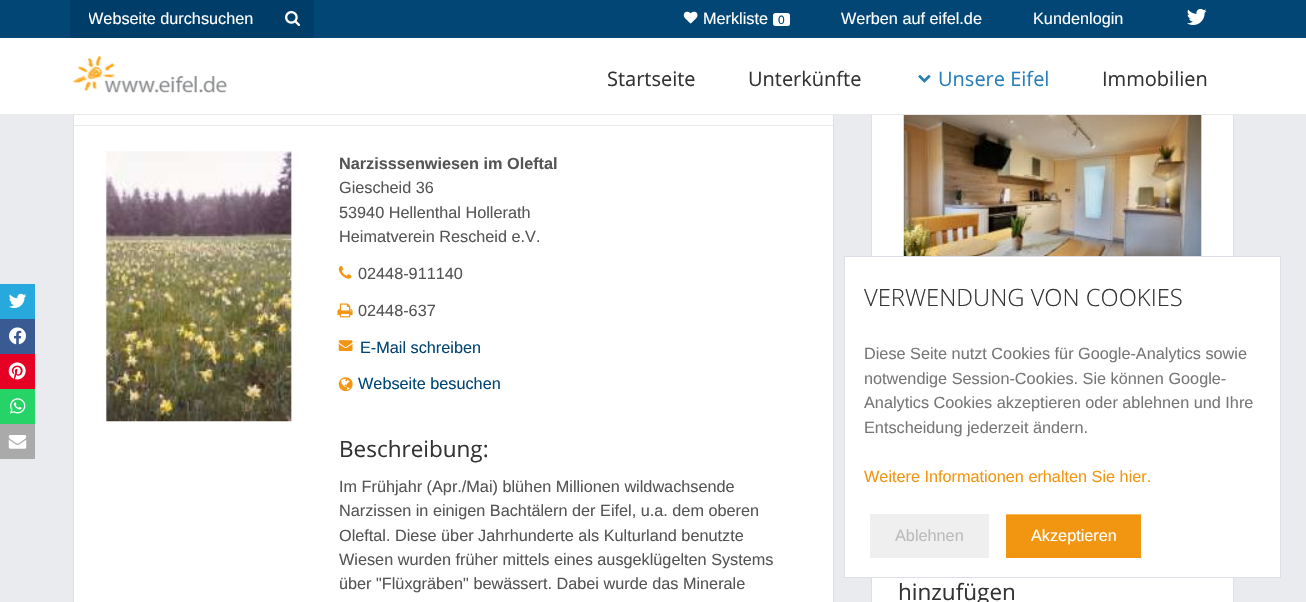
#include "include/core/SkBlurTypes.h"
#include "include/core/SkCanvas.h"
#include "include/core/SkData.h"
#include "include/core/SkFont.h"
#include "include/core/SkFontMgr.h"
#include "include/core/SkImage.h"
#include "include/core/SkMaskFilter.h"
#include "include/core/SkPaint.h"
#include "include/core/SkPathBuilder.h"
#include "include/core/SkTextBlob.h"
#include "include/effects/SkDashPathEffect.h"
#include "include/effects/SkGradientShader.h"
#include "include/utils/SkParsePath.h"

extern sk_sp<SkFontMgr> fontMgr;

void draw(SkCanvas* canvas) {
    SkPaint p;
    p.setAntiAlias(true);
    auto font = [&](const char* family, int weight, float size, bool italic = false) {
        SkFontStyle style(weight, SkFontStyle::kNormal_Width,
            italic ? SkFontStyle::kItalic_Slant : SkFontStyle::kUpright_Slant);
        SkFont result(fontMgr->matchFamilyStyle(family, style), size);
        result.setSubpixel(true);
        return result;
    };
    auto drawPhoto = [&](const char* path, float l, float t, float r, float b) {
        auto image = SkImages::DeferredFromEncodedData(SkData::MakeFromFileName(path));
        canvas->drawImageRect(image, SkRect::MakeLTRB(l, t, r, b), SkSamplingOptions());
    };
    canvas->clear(0xFFEAEBEE);
    p.setColor(0xFF014675);
    canvas->drawRect(SkRect::MakeLTRB(0, 0, 1306, 38), p);
    p.setColor(0xFF003E69);
    canvas->drawRect(SkRect::MakeLTRB(70, 0, 314, 38), p);
    canvas->save();
    canvas->clipRect(SkRect::MakeLTRB(89, 9, 276, 28));
    auto font1 = font("Liberation Sans", 400, 16.25f);
    p.setColor(0xFFFFFFFF);
    canvas->drawString("Webseite durchsuchen", 88, 24, font1, p);
    canvas->restore();
    drawPhoto("media/1.png", 285, 11, 301, 26);
    drawPhoto("media/2.png", 683, 11, 698, 24);
    canvas->drawString("Merkliste", 703, 24, font1, p);
    canvas->drawRoundRect(SkRect::MakeLTRB(773, 13, 790, 26), 2.5f, 2.5f, p);
    auto font2 = font("Liberation Sans", 400, 12);
    p.setColor(0xFF014675);
    canvas->drawString("0", 778, 24, font2, p);
    p.setColor(0xFFFFFFFF);
    canvas->drawString("Werben auf eifel.de", 841, 24, font1, p);
    canvas->drawString("Kundenlogin", 1033, 24, font1, p);
    drawPhoto("media/3.png", 1187, 8, 1207, 25);
    canvas->drawRect(SkRect::MakeLTRB(0, 38, 1306, 114), p);
    p.setColor(0xFFE9E9E9);
    canvas->drawRect(SkRect::MakeLTRB(0, 114, 1306, 115), p);
    drawPhoto("media/4.png", 72, 56, 227, 93);
    auto font3 = font("Open Sans", 400, 20);
    p.setColor(0xFF333333);
    canvas->drawString("Startseite", 607, 86, font3, p);
    canvas->drawString("Unterkünfte", 748, 86, font3, p);
    drawPhoto("media/5.png", 918, 74, 931, 83);
    p.setColor(0xFF287FB8);
    canvas->drawString("Unsere Eifel", 938, 86, font3, p);
    p.setColor(0xFF333333);
    canvas->drawString("Immobilien", 1102, 86, font3, p);
    p.setColor(0xFF27A9DD);
    canvas->drawRect(SkRect::MakeLTRB(0, 284, 35, 319), p);
    drawPhoto("media/6.png", 9, 293, 27, 309);
    p.setColor(0xFF3A5A93);
    canvas->drawRect(SkRect::MakeLTRB(0, 319, 35, 354), p);
    drawPhoto("media/7.png", 9, 327, 26, 345);
    p.setColor(0xFFE60023);
    canvas->drawRect(SkRect::MakeLTRB(0, 354, 35, 389), p);
    drawPhoto("media/8.png", 8, 362, 26, 380);
    p.setColor(0xFF25D366);
    canvas->drawRect(SkRect::MakeLTRB(0, 389, 35, 424), p);
    drawPhoto("media/9.png", 10, 398, 26, 414);
    p.setColor(0xFFAAAAAA);
    canvas->drawRect(SkRect::MakeLTRB(0, 424, 35, 459), p);
    drawPhoto("media/10.png", 8, 435, 27, 449);
    {
        const struct { float l, t, r, b; SkColor color; } items[] = {
            {74, 115, 833, 602, 0xFFFFFFFF},
            {833, 115, 834, 602, 0xFFDBE1E9},
            {73, 115, 74, 602, 0xFFDBE1E9},
            {74, 125, 833, 126, 0xFFE9E9E9},
        };
        for (auto [l, t, r, b, color] : items) {
            p.setColor(color);
            canvas->drawRect(SkRect::MakeLTRB(l, t, r, b), p);
        }
    }
    drawPhoto("media/11.png", 105, 151, 293, 422);
    auto font4 = font("Liberation Sans", 700, 16.25f);
    p.setColor(0xFF555555);
    canvas->drawString("Narzisssenwiesen im Oleftal", 339, 169, font4, p);
    {
        const struct { const char* s; float x, y; } items[] = {
            {"Giescheid 36", 339, 193},
            {"53940 Hellenthal Hollerath", 339, 218},
            {"Heimatverein Rescheid e.V.", 339, 242},
        };
        for (auto [s, x, y] : items) {
            canvas->drawString(s, x, y, font1, p);
        }
    }
    drawPhoto("media/12.png", 338, 266, 352, 279);
    canvas->drawString("02448-911140", 358, 279, font1, p);
    drawPhoto("media/13.png", 337, 303, 353, 318);
    canvas->drawString("02448-637", 358, 316, font1, p);
    drawPhoto("media/14.png", 338, 340, 353, 351);
    p.setColor(0xFF014675);
    canvas->drawString("E-Mail schreiben", 360, 353, font1, p);
    drawPhoto("media/15.png", 338, 377, 353, 392);
    canvas->drawString("Webseite besuchen", 358, 389, font1, p);
    auto font5 = font("Open Sans", 400, 22.5f);
    p.setColor(0xFF333333);
    canvas->drawString("Beschreibung:", 339, 457, font5, p);
    p.setColor(0xFF555555);
    {
        const struct { const char* s; float x, y; } items[] = {
            {"Im Frühjahr (Apr./Mai) blühen Millionen wildwachsende", 339, 492},
            {"Narzissen in einigen Bachtälern der Eifel, u.a. dem oberen", 339, 516},
            {"Oleftal. Diese über Jahrhunderte als Kulturland benutzte", 339, 541},
            {"Wiesen wurden früher mittels eines ausgeklügelten Systems", 339, 565},
            {"über \"Flüxgräben\" bewässert. Dabei wurde das Minerale", 339, 589},
        };
        for (auto [s, x, y] : items) {
            canvas->drawString(s, x, y, font1, p);
        }
    }
    {
        const struct { float l, t, r, b; SkColor color; } items[] = {
            {872, 115, 1233, 256, 0xFFFFFFFF},
            {1233, 115, 1234, 256, 0xFFDBE1E9},
            {871, 115, 872, 256, 0xFFDBE1E9},
        };
        for (auto [l, t, r, b, color] : items) {
            p.setColor(color);
            canvas->drawRect(SkRect::MakeLTRB(l, t, r, b), p);
        }
    }
    drawPhoto("media/16.png", 903, 115, 1202, 256);
    {
        const struct { float l, t, r, b; SkColor color; } items[] = {
            {872, 578, 1233, 602, 0xFFFFFFFF},
            {1233, 578, 1234, 602, 0xFFDCDFE6},
            {871, 578, 872, 602, 0xFFDCDFE6},
        };
        for (auto [l, t, r, b, color] : items) {
            p.setColor(color);
            canvas->drawRect(SkRect::MakeLTRB(l, t, r, b), p);
        }
    }
    p.setColor(0xFF333333);
    canvas->drawString("hinzufügen", 898, 600, font5, p);
    p.setColor(0xFFFFFFFF);
    canvas->drawRect(SkRect::MakeLTRB(844.5f, 256.5f, 1280.5f, 577.5f), p);
    p.setStyle(SkPaint::kStroke_Style);
    p.setStrokeWidth(1);
    p.setColor(0xFFDCDFE6);
    canvas->drawRect(SkRect::MakeLTRB(844.5f, 256.5f, 1280.5f, 577.5f), p);
    auto font6 = font("Open Sans", 300, 23.75f);
    p.setStyle(SkPaint::kFill_Style);
    p.setColor(0xFF333333);
    canvas->drawString("VERWENDUNG VON COOKIES", 864, 306, font6, p);
    p.setColor(0xFF777777);
    {
        const struct { const char* s; float x, y; } items[] = {
            {"Diese Seite nutzt Cookies für Google-Analytics sowie", 864, 359},
            {"notwendige Session-Cookies. Sie können Google-", 864, 384},
            {"Analytics Cookies akzeptieren oder ablehnen und Ihre", 864, 408},
            {"Entscheidung jederzeit ändern.", 864, 433},
        };
        for (auto [s, x, y] : items) {
            canvas->drawString(s, x, y, font1, p);
        }
    }
    p.setColor(0xFFF29510);
    canvas->drawString("Weitere Informationen erhalten Sie hier.", 864, 482, font1, p);
    p.setColor(0xFFEFEFEF);
    canvas->drawRect(SkRect::MakeLTRB(870, 514, 989, 558), p);
    p.setColor(0xFFBBBBBB);
    canvas->drawString("Ablehnen", 895, 541, font1, p);
    p.setColor(0xFFF29510);
    canvas->drawRect(SkRect::MakeLTRB(1006, 515, 1141, 558), p);
    p.setColor(0xFFF7BB58);
    canvas->drawRect(SkRect::MakeLTRB(1006, 514, 1141, 515), p);
    p.setColor(0xFFFFFFFF);
    canvas->drawString("Akzeptieren", 1031, 541, font1, p);
}
